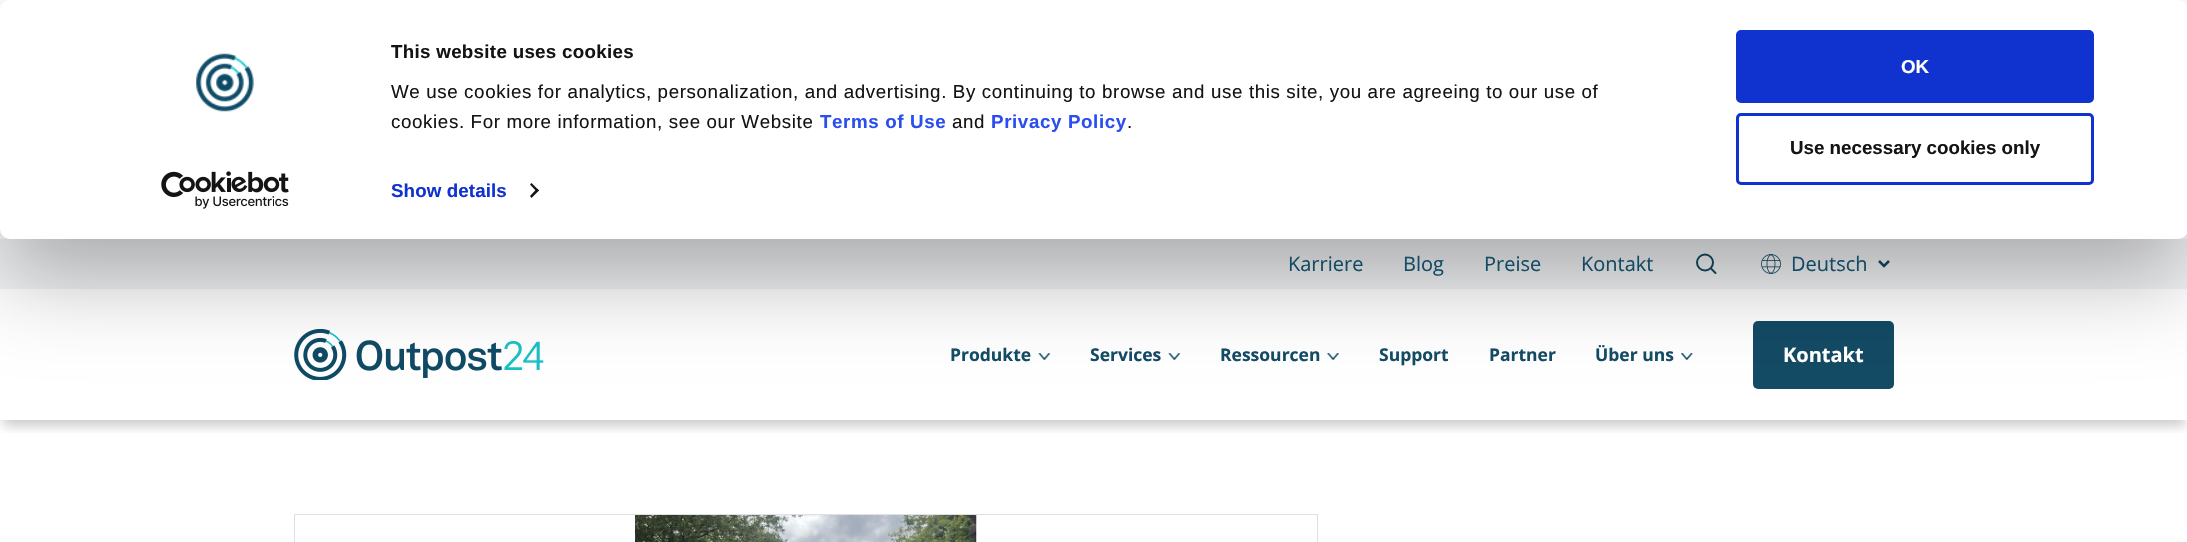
#include "include/core/SkBlurTypes.h"
#include "include/core/SkCanvas.h"
#include "include/core/SkData.h"
#include "include/core/SkFont.h"
#include "include/core/SkFontMgr.h"
#include "include/core/SkImage.h"
#include "include/core/SkMaskFilter.h"
#include "include/core/SkPaint.h"
#include "include/core/SkPathBuilder.h"
#include "include/core/SkTextBlob.h"
#include "include/effects/SkDashPathEffect.h"
#include "include/effects/SkGradientShader.h"
#include "include/utils/SkParsePath.h"

extern sk_sp<SkFontMgr> fontMgr;

void draw(SkCanvas* canvas) {
    SkPaint p;
    p.setAntiAlias(true);
    auto font = [&](const char* family, int weight, float size, bool italic = false) {
        SkFontStyle style(weight, SkFontStyle::kNormal_Width,
            italic ? SkFontStyle::kItalic_Slant : SkFontStyle::kUpright_Slant);
        SkFont result(fontMgr->matchFamilyStyle(family, style), size);
        result.setSubpixel(true);
        return result;
    };
    auto drawTracked = [&](const char* s, float x, float y, const SkFont& font, const SkPaint& ink, float letter, float word) {
        std::vector<SkGlyphID> glyphs(font.countText(s, strlen(s), SkTextEncoding::kUTF8));
        std::vector<float> xs(glyphs.size());
        font.textToGlyphs(s, strlen(s), SkTextEncoding::kUTF8, glyphs);
        font.getXPos(glyphs, xs, x);
        float extra = 0;
        for (size_t i = 0; i < glyphs.size(); i++) {
            xs[i] += extra;
            extra += letter + word * (glyphs[i] == font.unicharToGlyph(' '));
        }
        canvas->drawTextBlob(SkTextBlob::MakeFromPosHGlyphs(glyphs, xs, y, font), 0, 0, ink);
    };
    auto drawPhoto = [&](const char* path, float l, float t, float r, float b) {
        auto image = SkImages::DeferredFromEncodedData(SkData::MakeFromFileName(path));
        canvas->drawImageRect(image, SkRect::MakeLTRB(l, t, r, b), SkSamplingOptions());
    };
    canvas->clear(0xFFFFFFFF);
    canvas->save();
    canvas->clipRect(SkRect::MakeLTRB(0, 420, 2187, 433));
    p.setColor(0x33000000);
    p.setMaskFilter(SkMaskFilter::MakeBlur(kNormal_SkBlurStyle, 5.5f));
    canvas->drawRect(SkRect::MakeLTRB(3, 250, 2185, 426), p);
    p.setMaskFilter(nullptr);
    canvas->restore();
    p.setColor(0xFFF2F3F5);
    canvas->drawRect(SkRect::MakeLTRB(0, 239, 2187, 289), p);
    p.setStyle(SkPaint::kStroke_Style);
    p.setStrokeWidth(2);
    p.setColor(0xFF134A64);
    canvas->drawCircle(1705, 262.5f, 8, p);
    p.setStrokeCap(SkPaint::kRound_Cap);
    p.setStrokeJoin(SkPaint::kRound_Join);
    canvas->drawPath(SkPathBuilder().moveTo(1711, 268.5f).lineTo(1715.5f, 273).detach(), p);
    drawPhoto("media/3.png", 1761, 254, 1781, 274);
    p.setStrokeWidth(2.5f);
    p.setStrokeCap(SkPaint::kButt_Cap);
    p.setStrokeJoin(SkPaint::kMiter_Join);
    canvas->drawPath(SkPathBuilder().moveTo(1879, 261).lineTo(1884, 266).lineTo(1889, 261).detach(), p);
    drawPhoto("media/4.png", 294, 329, 544, 380);
    drawPhoto("media/5.png", 1038, 353, 1051, 360);
    drawPhoto("media/5.png", 1168, 353, 1181, 360);
    drawPhoto("media/6.png", 1327, 353, 1339, 360);
    drawPhoto("media/7.png", 1681, 353, 1693, 360);
    p.setStyle(SkPaint::kFill_Style);
    canvas->drawRoundRect(SkRect::MakeLTRB(1753, 321, 1894, 389), 5, 5, p);
    p.setColor(0x4D000000);
    p.setMaskFilter(SkMaskFilter::MakeBlur(kNormal_SkBlurStyle, 44));
    canvas->drawRoundRect(SkRect::MakeLTRB(0, 38, 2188, 276), 10, 10, p);
    p.setMaskFilter(nullptr);
    p.setColor(0xFFFFFFFF);
    canvas->drawRoundRect(SkRect::MakeLTRB(0, 0, 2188, 239), 10, 10, p);
    drawPhoto("media/1.png", 196, 53, 254, 112);
    drawPhoto("media/2.png", 161, 171, 289, 209);
    auto font1 = font("Liberation Sans", 700, 18.75f);
    p.setColor(0xFF141414);
    drawTracked("This website uses cookies", 391, 58, font1, p, 0.3f, 0);
    auto font2 = font("Liberation Sans", 400, 18.75f);
    drawTracked("We use cookies for analytics, personalization, and advertising. By continuing to browse and use this site, you are agreeing to our use of", 391, 98, font2, p, 0.62f, 0);
    drawTracked("cookies. For more information, see our Website", 391, 128, font2, p, 0.62f, 0);
    p.setColor(0xFF2A4EEF);
    drawTracked("Terms of Use", 820, 128, font1, p, 0.62f, 0);
    p.setColor(0xFF141414);
    drawTracked("and", 952, 128, font2, p, 0.62f, 0);
    p.setColor(0xFF2A4EEF);
    drawTracked("Privacy Policy", 991, 128, font1, p, 0.62f, 0);
    p.setColor(0xFF141414);
    drawTracked(".", 1127, 128, font2, p, 0.62f, 0);
    p.setColor(0xFF1032CF);
    drawTracked("Show details", 391, 197, font1, p, 0.1f, 0);
    p.setColor(0xFF141414);
    canvas->drawPath(SkPathBuilder().moveTo(531.5f, 183).lineTo(539, 190.5f).lineTo(537, 192).lineTo(530, 184.5f).close().detach(), p);
    canvas->drawPath(SkPathBuilder().moveTo(537, 188.5f).lineTo(539, 190.5f).lineTo(531.5f, 198).lineTo(530, 196).close().detach(), p);
    p.setColor(0xFF1032CF);
    canvas->drawRoundRect(SkRect::MakeLTRB(1737.5f, 31.5f, 2092.5f, 101.5f), 3.5f, 3.5f, p);
    p.setStyle(SkPaint::kStroke_Style);
    p.setStrokeWidth(3);
    canvas->drawRoundRect(SkRect::MakeLTRB(1737.5f, 31.5f, 2092.5f, 101.5f), 3.5f, 3.5f, p);
    p.setStyle(SkPaint::kFill_Style);
    p.setColor(0xFFFFFFFF);
    canvas->drawString("OK", 1901, 73, font1, p);
    p.setStyle(SkPaint::kStroke_Style);
    p.setColor(0xFF1032CF);
    canvas->drawRoundRect(SkRect::MakeLTRB(1737.5f, 114.5f, 2092.5f, 183.5f), 3.5f, 3.5f, p);
    p.setStyle(SkPaint::kFill_Style);
    p.setColor(0xFF141414);
    canvas->drawString("Use necessary cookies only", 1790, 154, font1, p);
    auto font3 = font("Open Sans", 400, 20);
    p.setColor(0xFF134A64);
    {
        const struct { const char* s; float x, y; } items[] = {
            {"Karriere", 1288, 271},
            {"Blog", 1403, 271},
            {"Preise", 1484, 271},
            {"Kontakt", 1581, 271},
            {"Deutsch", 1791, 271},
        };
        for (auto [s, x, y] : items) {
            canvas->drawString(s, x, y, font3, p);
        }
    }
    auto font4 = font("Open Sans", 700, 17.5f);
    {
        const struct { const char* s; float x, y; } items[] = {
            {"Produkte", 950, 361},
            {"Services", 1090, 361},
            {"Ressourcen", 1220, 361},
            {"Support", 1379, 361},
            {"Partner", 1489, 361},
            {"Über uns", 1595, 361},
        };
        for (auto [s, x, y] : items) {
            canvas->drawString(s, x, y, font4, p);
        }
    }
    auto font5 = font("Open Sans", 700, 20);
    p.setColor(0xFFFFFFFF);
    canvas->drawString("Kontakt", 1783, 362, font5, p);
    p.setStyle(SkPaint::kStroke_Style);
    p.setStrokeWidth(1);
    p.setColor(0xFFDEE0E6);
    canvas->drawRect(SkRect::MakeLTRB(294.5f, 514.5f, 1317.5f, 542.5f), p);
    drawPhoto("media/8.png", 635, 515, 977, 542);
}
